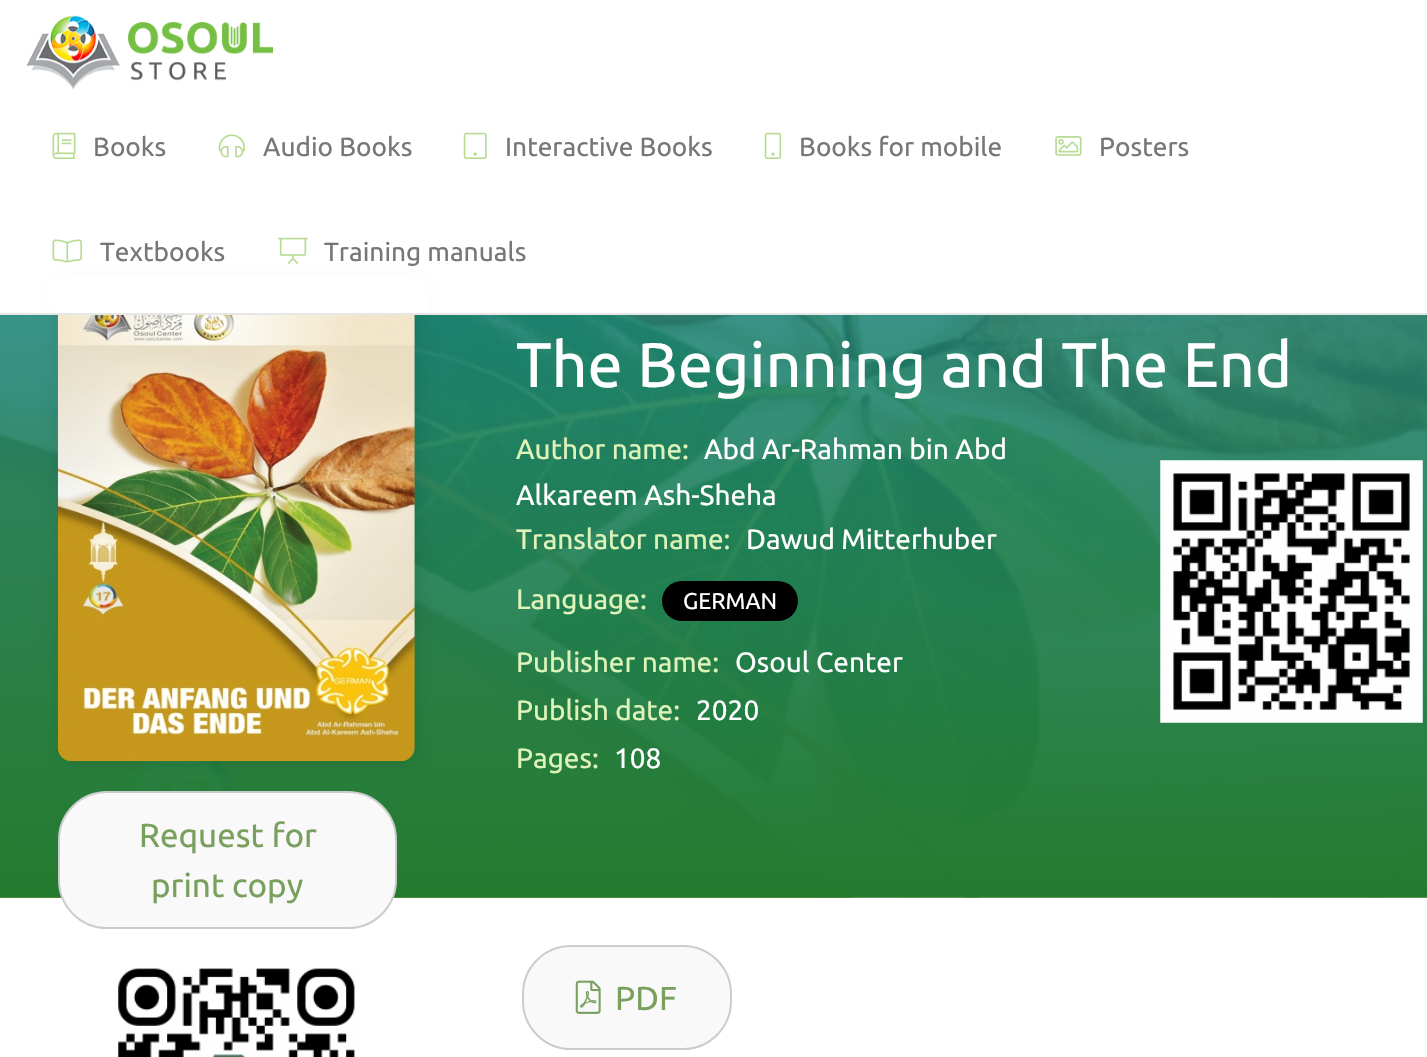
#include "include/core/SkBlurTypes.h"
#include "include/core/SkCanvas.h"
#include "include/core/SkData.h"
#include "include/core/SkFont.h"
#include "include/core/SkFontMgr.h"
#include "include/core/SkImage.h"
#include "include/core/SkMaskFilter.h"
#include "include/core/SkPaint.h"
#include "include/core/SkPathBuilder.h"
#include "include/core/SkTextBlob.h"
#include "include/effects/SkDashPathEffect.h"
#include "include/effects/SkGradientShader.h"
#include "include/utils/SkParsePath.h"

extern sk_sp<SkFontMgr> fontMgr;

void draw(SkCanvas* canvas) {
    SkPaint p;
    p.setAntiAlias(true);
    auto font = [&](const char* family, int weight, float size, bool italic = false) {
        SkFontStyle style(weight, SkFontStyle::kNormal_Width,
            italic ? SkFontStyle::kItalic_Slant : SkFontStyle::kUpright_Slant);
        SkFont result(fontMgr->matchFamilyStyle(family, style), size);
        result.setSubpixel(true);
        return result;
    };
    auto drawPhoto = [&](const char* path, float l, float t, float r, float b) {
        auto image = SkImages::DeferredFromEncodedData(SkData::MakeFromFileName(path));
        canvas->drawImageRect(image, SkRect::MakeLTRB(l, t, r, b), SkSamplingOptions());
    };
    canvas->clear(0xFFFFFFFF);
    drawPhoto("media/9.png", 0, 315, 1427, 898);
    p.setColor(0x1A000000);
    p.setMaskFilter(SkMaskFilter::MakeBlur(kNormal_SkBlurStyle, 9));
    canvas->drawRoundRect(SkRect::MakeLTRB(60, 287, 417, 763), 14, 14, p);
    p.setMaskFilter(nullptr);
    p.setColor(0xFFFFFFFF);
    canvas->drawRect(SkRect::MakeLTRB(49, 275, 428, 313), p);
    p.setColor(0xFFE7E7E7);
    canvas->drawRect(SkRect::MakeLTRB(0, 313, 1427, 315), p);
    drawPhoto("media/1.png", 26, 15, 273, 90);
    drawPhoto("media/2.png", 52, 132, 76, 159);
    auto font1 = font("Ubuntu", 400, 26.25f);
    p.setColor(0xFF777777);
    canvas->drawString("Books", 93, 156, font1, p);
    drawPhoto("media/3.png", 218, 134, 245, 158);
    canvas->drawString("Audio Books", 263, 156, font1, p);
    drawPhoto("media/4.png", 463, 132, 487, 159);
    canvas->drawString("Interactive Books", 505, 156, font1, p);
    drawPhoto("media/5.png", 764, 132, 782, 159);
    canvas->drawString("Books for mobile", 799, 156, font1, p);
    drawPhoto("media/6.png", 1055, 136, 1082, 156);
    canvas->drawString("Posters", 1099, 156, font1, p);
    drawPhoto("media/7.png", 52, 239, 82, 263);
    canvas->drawString("Textbooks", 100, 261, font1, p);
    drawPhoto("media/8.png", 278, 237, 308, 264);
    canvas->drawString("Training manuals", 324, 261, font1, p);
    auto font2 = font("Ubuntu", 400, 63);
    p.setColor(0xFFFFFFFF);
    canvas->drawString("The Beginning and The End", 516, 387, font2, p);
    auto font3 = font("Ubuntu", 400, 28);
    p.setColor(0xFFDDF3B9);
    canvas->drawString("Author name:", 516, 459, font3, p);
    p.setColor(0xFFFFFFFF);
    canvas->drawString("Abd Ar-Rahman bin Abd", 704, 459, font3, p);
    canvas->drawString("Alkareem Ash-Sheha", 516, 505, font3, p);
    p.setColor(0xFFDDF3B9);
    canvas->drawString("Translator name:", 516, 549, font3, p);
    p.setColor(0xFFFFFFFF);
    canvas->drawString("Dawud Mitterhuber", 746, 549, font3, p);
    p.setColor(0xFFDDF3B9);
    canvas->drawString("Language:", 516, 609, font3, p);
    p.setColor(0xFF000000);
    canvas->drawRoundRect(SkRect::MakeLTRB(662, 581, 798, 621), 20, 20, p);
    auto font4 = font("Ubuntu", 400, 22.75f);
    p.setColor(0xFFFFFFFF);
    canvas->drawString("GERMAN", 683, 609, font4, p);
    p.setColor(0xFFDDF3B9);
    canvas->drawString("Publisher name:", 516, 672, font3, p);
    p.setColor(0xFFFFFFFF);
    canvas->drawString("Osoul Center", 735, 672, font3, p);
    p.setColor(0xFFDDF3B9);
    canvas->drawString("Publish date:", 516, 720, font3, p);
    p.setColor(0xFFFFFFFF);
    canvas->drawString("2020", 696, 720, font3, p);
    p.setColor(0xFFDDF3B9);
    canvas->drawString("Pages:", 516, 768, font3, p);
    p.setColor(0xFFFFFFFF);
    canvas->drawString("108", 614, 768, font3, p);
    drawPhoto("media/10.png", 1160, 460, 1423, 723);
    drawPhoto("media/11.png", 57, 315, 415, 762);
    p.setColor(0xFFF9F9F9);
    canvas->drawRoundRect(SkRect::MakeLTRB(59, 792, 396, 928), 48, 48, p);
    p.setStyle(SkPaint::kStroke_Style);
    p.setStrokeWidth(2);
    p.setColor(0xFFCCCCCC);
    canvas->drawRoundRect(SkRect::MakeLTRB(59, 792, 396, 928), 48, 48, p);
    auto font5 = font("Ubuntu", 400, 33.25f);
    p.setStyle(SkPaint::kFill_Style);
    p.setColor(0xFF79A05F);
    canvas->drawString("Request for", 139, 847, font5, p);
    canvas->drawString("print copy", 151, 897, font5, p);
    drawPhoto("media/12.png", 118, 968, 355, 1057);
    p.setColor(0xFFF9F9F9);
    canvas->drawRoundRect(SkRect::MakeLTRB(523, 946, 731, 1049), 48, 48, p);
    p.setStyle(SkPaint::kStroke_Style);
    p.setColor(0xFFCCCCCC);
    canvas->drawRoundRect(SkRect::MakeLTRB(523, 946, 731, 1049), 48, 48, p);
    drawPhoto("media/13.png", 575, 980, 601, 1014);
    p.setStyle(SkPaint::kFill_Style);
    p.setColor(0xFF79A05F);
    canvas->drawString("PDF", 615, 1010, font5, p);
}
